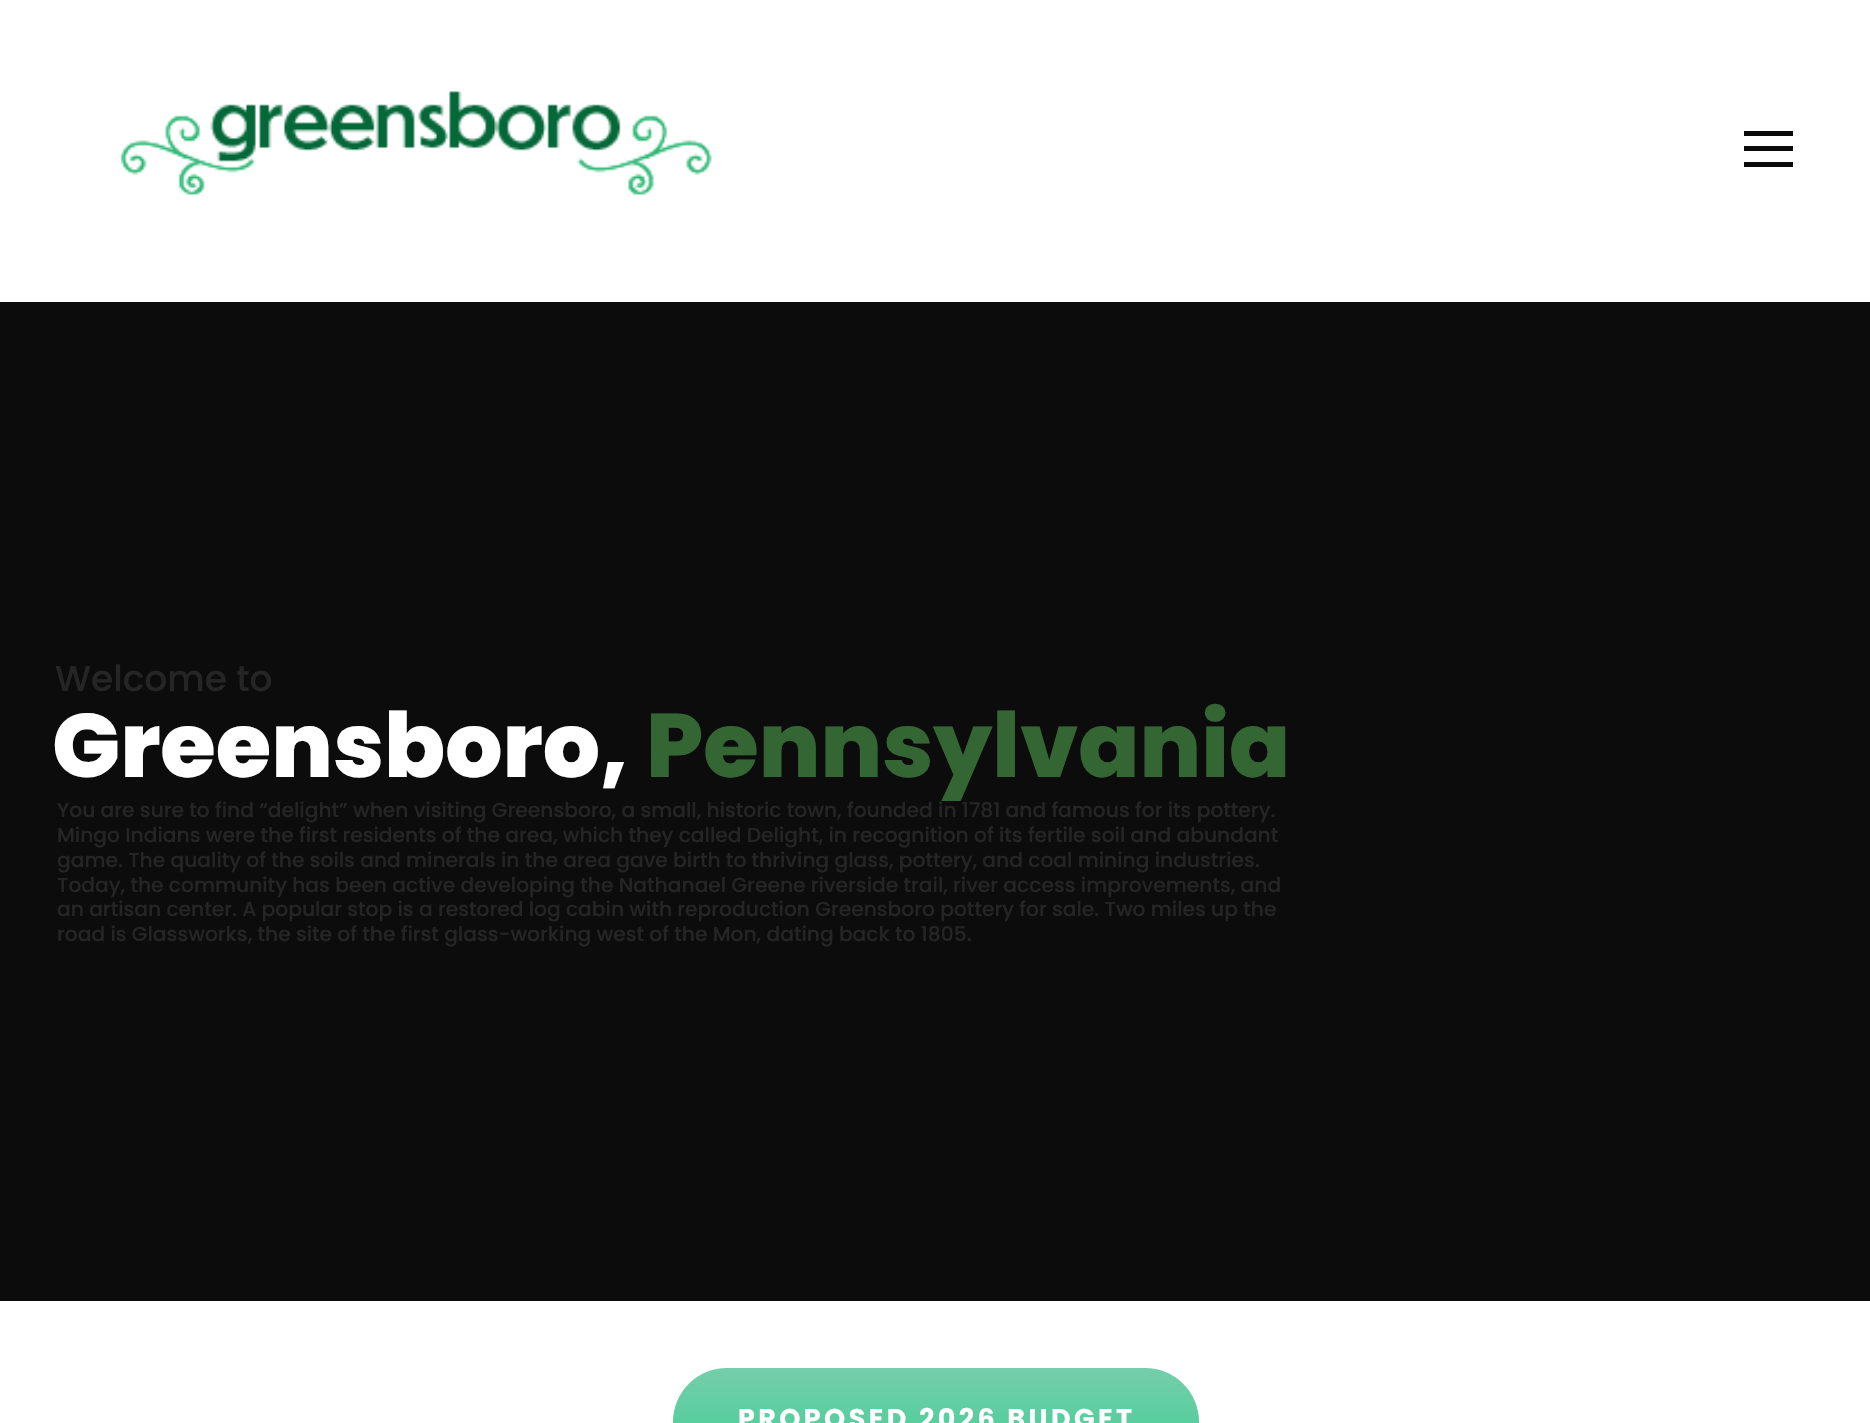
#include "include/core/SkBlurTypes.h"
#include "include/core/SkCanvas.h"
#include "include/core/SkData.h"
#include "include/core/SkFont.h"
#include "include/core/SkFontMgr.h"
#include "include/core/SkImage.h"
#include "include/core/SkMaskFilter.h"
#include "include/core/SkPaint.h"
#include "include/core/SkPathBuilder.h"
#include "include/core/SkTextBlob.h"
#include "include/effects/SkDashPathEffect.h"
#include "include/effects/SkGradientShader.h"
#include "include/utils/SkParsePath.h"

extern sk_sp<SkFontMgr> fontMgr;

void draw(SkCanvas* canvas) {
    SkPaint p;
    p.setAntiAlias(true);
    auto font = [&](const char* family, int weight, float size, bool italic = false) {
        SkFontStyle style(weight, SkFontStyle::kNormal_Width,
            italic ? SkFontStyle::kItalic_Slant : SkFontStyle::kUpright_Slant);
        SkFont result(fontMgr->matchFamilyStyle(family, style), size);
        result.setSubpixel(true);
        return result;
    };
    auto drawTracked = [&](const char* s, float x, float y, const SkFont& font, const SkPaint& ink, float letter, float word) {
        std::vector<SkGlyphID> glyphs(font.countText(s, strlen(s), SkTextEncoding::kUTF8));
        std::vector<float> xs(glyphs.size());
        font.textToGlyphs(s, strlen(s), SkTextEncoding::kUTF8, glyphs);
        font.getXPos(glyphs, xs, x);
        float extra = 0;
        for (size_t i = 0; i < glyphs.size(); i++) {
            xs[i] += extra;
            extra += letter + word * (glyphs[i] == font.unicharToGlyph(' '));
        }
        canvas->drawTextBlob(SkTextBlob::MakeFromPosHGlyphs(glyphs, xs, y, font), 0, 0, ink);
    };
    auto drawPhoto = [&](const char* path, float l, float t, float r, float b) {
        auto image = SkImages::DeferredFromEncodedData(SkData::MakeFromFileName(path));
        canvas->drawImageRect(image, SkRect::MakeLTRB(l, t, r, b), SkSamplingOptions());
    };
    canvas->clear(0xFFFFFFFF);
    p.setColor(0xFF0C0C0C);
    canvas->drawRect(SkRect::MakeLTRB(0, 302, 1870, 1301), p);
    p.setColor(0x1A000000);
    p.setMaskFilter(SkMaskFilter::MakeBlur(kNormal_SkBlurStyle, 2));
    canvas->drawRect(SkRect::MakeLTRB(0, 2, 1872, 304), p);
    p.setMaskFilter(nullptr);
    p.setColor(0xFFFFFFFF);
    canvas->drawRect(SkRect::MakeLTRB(0, 0, 1870, 302), p);
    drawPhoto("media/1.png", 120, 91, 712, 195);
    {
        const struct { float l, t, r, b; SkColor color; } items[] = {
            {1744, 131, 1793, 136, 0xFF0A0A0A},
            {1744, 146, 1793, 151, 0xFF0A0A0A},
            {1744, 162, 1793, 167, 0xFF0A0A0A},
        };
        for (auto [l, t, r, b, color] : items) {
            p.setColor(color);
            canvas->drawRect(SkRect::MakeLTRB(l, t, r, b), p);
        }
    }
    auto font1 = font("Poppins", 500, 36);
    p.setColor(0xFF252525);
    canvas->drawString("Welcome to", 55, 691, font1, p);
    auto font2 = font("Poppins", 800, 90);
    p.setColor(0xFFFFFFFF);
    canvas->drawString("Greensboro,", 52, 777, font2, p);
    p.setColor(0xFF336633);
    canvas->drawString("Pennsylvania", 646, 777, font2, p);
    auto font3 = font("Poppins", 500, 20.25f);
    p.setColor(0xFF252525);
    {
        const struct { const char* s; float x, y; } items[] = {
            {"You are sure to find “delight” when visiting Greensboro, a small, historic town, founded in 1781 and famous for its pottery.", 57, 817},
            {"Mingo Indians were the first residents of the area, which they called Delight, in recognition of its fertile soil and abundant", 57, 842},
            {"game. The quality of the soils and minerals in the area gave birth to thriving glass, pottery, and coal mining industries.", 57, 867},
            {"Today, the community has been active developing the Nathanael Greene riverside trail, river access improvements, and", 57, 892},
            {"an artisan center. A popular stop is a restored log cabin with reproduction Greensboro pottery for sale. Two miles up the", 57, 916},
            {"road is Glassworks, the site of the first glass-working west of the Mon, dating back to 1805.", 57, 941},
        };
        for (auto [s, x, y] : items) {
            canvas->drawString(s, x, y, font3, p);
        }
    }
    {
        const SkColor colors[] = {0xFF75CEAB, 0xFF3BCF93};
        const float stops[] = {0, 1};
        const SkPoint ends[] = {{936, 1368}, {936, 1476}};
        p.setShader(SkGradientShader::MakeLinear(ends, colors, stops, 2, SkTileMode::kClamp));
        p.setAlpha(255);
    }
    canvas->drawRoundRect(SkRect::MakeLTRB(673, 1368, 1199, 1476), 54, 54, p);
    auto font4 = font("Poppins", 700, 27);
    p.setShader(nullptr);
    p.setColor(0xFFFFFFFF);
    drawTracked("PROPOSED 2026 BUDGET", 738, 1428, font4, p, 3.4f, 0);
}
